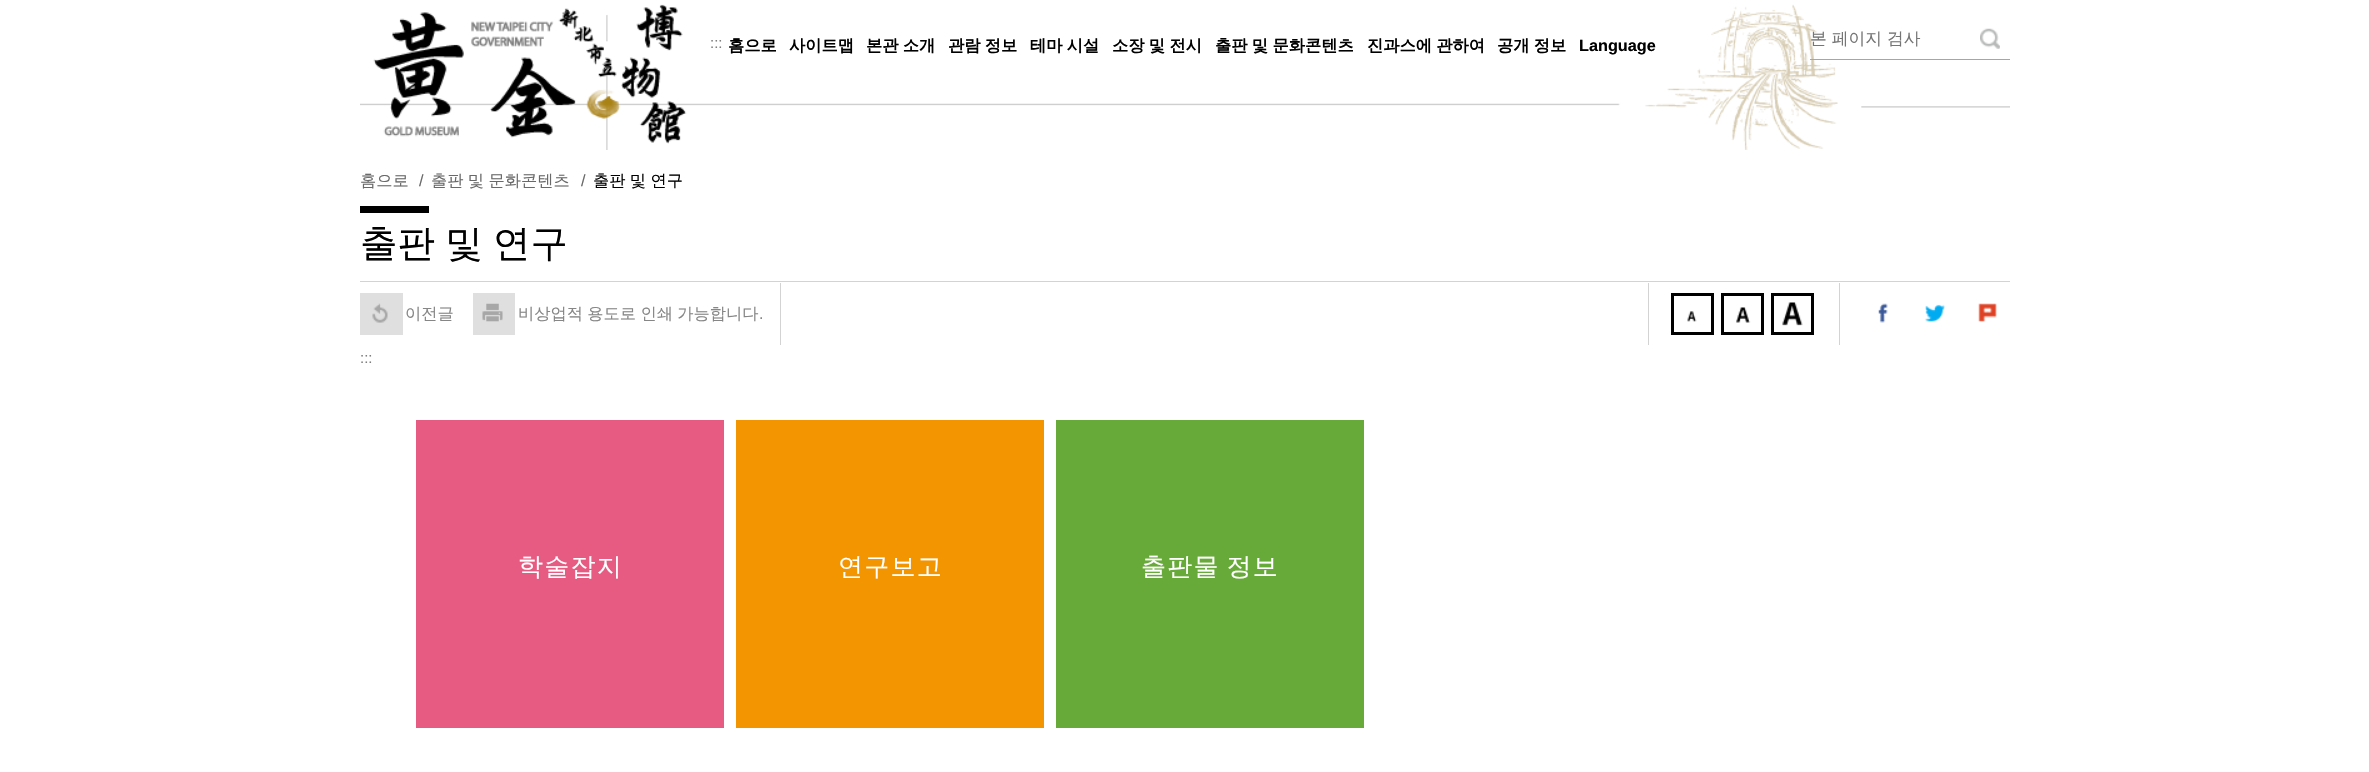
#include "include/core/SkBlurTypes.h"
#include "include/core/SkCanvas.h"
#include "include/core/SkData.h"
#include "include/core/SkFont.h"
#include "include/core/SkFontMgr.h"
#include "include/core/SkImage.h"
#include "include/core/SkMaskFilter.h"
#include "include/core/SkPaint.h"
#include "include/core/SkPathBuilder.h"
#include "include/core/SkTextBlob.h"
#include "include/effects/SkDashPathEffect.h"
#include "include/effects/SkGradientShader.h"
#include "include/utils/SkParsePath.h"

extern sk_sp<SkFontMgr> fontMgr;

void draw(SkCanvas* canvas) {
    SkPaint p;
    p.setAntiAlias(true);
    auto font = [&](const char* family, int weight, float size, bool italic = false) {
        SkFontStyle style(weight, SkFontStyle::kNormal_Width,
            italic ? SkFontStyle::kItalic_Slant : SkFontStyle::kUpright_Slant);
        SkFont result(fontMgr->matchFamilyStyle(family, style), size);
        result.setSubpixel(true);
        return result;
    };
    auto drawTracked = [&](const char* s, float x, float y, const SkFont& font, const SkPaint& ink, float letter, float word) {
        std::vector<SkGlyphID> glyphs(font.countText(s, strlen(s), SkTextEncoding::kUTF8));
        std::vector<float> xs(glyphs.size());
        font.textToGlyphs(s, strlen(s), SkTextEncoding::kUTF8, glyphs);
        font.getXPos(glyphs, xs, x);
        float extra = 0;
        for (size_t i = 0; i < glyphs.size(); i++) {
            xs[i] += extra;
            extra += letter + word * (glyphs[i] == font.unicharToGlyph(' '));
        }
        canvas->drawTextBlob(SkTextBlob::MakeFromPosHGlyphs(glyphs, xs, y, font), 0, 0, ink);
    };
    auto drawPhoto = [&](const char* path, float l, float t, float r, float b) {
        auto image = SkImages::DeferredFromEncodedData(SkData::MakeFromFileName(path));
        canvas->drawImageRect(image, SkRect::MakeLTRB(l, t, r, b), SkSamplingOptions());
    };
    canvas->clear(0xFFFFFFFF);
    drawPhoto("media/1.png", 360, 4, 2010, 150);
    auto font1 = font("Liberation Sans", 400, 15);
    p.setColor(0xFF7F7F7F);
    canvas->drawString(":::", 710, 48, font1, p);
    auto font2 = font("WenQuanYi Zen Hei", 700, 16.25f);
    p.setColor(0xFF000000);
    canvas->drawString("홈으로", 728, 51, font2, p);
    canvas->drawString("사이트맵", 789, 51, font2, p);
    {
        const struct { const char* s; float x, y; } items[] = {
            {"본관 소개", 866, 51},
            {"관람 정보", 948, 51},
            {"테마 시설", 1030, 51},
            {"소장 및 전시", 1112, 51},
            {"출판 및 문화콘텐츠", 1215, 51},
            {"진과스에 관하여", 1367, 51},
            {"공개 정보", 1497, 51},
        };
        for (auto [s, x, y] : items) {
            drawTracked(s, x, y, font2, p, 0, -0.5f);
        }
    }
    auto font3 = font("Liberation Sans", 700, 16.25f);
    canvas->drawString("Language", 1579, 51, font3, p);
    p.setColor(0xFFA6A6A6);
    canvas->drawRect(SkRect::MakeLTRB(1810, 59, 2010, 60), p);
    auto font4 = font("WenQuanYi Zen Hei", 500, 16.75f);
    p.setColor(0xFF757575);
    canvas->drawString("본 페이지 검사", 1810, 44, font4, p);
    drawPhoto("media/2.png", 1980, 28, 2000, 49);
    auto font5 = font("WenQuanYi Zen Hei", 500, 16.25f);
    p.setColor(0xFF696969);
    canvas->drawString("홈으로", 360, 186, font5, p);
    auto font6 = font("Liberation Sans", 400, 16.25f);
    canvas->drawString("/", 419, 186, font6, p);
    drawTracked("출판 및 문화콘텐츠", 431, 186, font5, p, 0, -0.5f);
    canvas->drawString("/", 581, 186, font6, p);
    p.setColor(0xFF000000);
    drawTracked("출판 및 연구", 593, 186, font5, p, 0, -0.5f);
    canvas->drawRect(SkRect::MakeLTRB(360, 206, 429, 213), p);
    auto font7 = font("WenQuanYi Zen Hei", 500, 37.5f);
    drawTracked("출판 및 연구", 360, 256, font7, p, 0, -1);
    {
        const struct { float l, t, r, b; SkColor color; } items[] = {
            {360, 281, 2010, 282, 0xFFD3D3D3},
            {780, 283, 781, 345, 0xFFD3D3D3},
            {360, 293, 403, 335, 0xFFDFDFDF},
        };
        for (auto [l, t, r, b, color] : items) {
            p.setColor(color);
            canvas->drawRect(SkRect::MakeLTRB(l, t, r, b), p);
        }
    }
    drawPhoto("media/3.png", 372, 303, 388, 323);
    p.setColor(0xFF868686);
    canvas->drawString("이전글", 405, 319, font5, p);
    p.setColor(0xFFDFDFDF);
    canvas->drawRect(SkRect::MakeLTRB(473, 293, 515, 335), p);
    drawPhoto("media/4.png", 482, 303, 503, 322);
    p.setColor(0xFF868686);
    drawTracked("비상업적 용도로 인쇄 가능합니다", 518, 319, font5, p, 0, -0.5f);
    canvas->drawString(".", 759, 319, font6, p);
    p.setColor(0xFFD3D3D3);
    canvas->drawRect(SkRect::MakeLTRB(1648, 283, 1649, 345), p);
    p.setStyle(SkPaint::kStroke_Style);
    p.setStrokeWidth(3);
    p.setColor(0xFF000000);
    canvas->drawRect(SkRect::MakeLTRB(1672.5f, 294.5f, 1712.5f, 333.5f), p);
    drawPhoto("media/5.png", 1687, 311, 1697, 322);
    canvas->drawRect(SkRect::MakeLTRB(1722.5f, 294.5f, 1762.5f, 333.5f), p);
    drawPhoto("media/6.png", 1736, 307, 1751, 323);
    canvas->drawRect(SkRect::MakeLTRB(1772.5f, 294.5f, 1812.5f, 333.5f), p);
    drawPhoto("media/7.png", 1782, 302, 1803, 326);
    p.setStyle(SkPaint::kFill_Style);
    p.setColor(0xFFD3D3D3);
    canvas->drawRect(SkRect::MakeLTRB(1839, 283, 1840, 345), p);
    drawPhoto("media/8.png", 1878, 303, 1888, 323);
    drawPhoto("media/9.png", 1925, 304, 1945, 322);
    drawPhoto("media/10.png", 1978, 303, 1997, 322);
    p.setColor(0xFF7F7F7F);
    canvas->drawString(":::", 360, 363, font1, p);
    p.setColor(0xFFE75A82);
    canvas->drawRect(SkRect::MakeLTRB(416, 420, 724, 728), p);
    auto font8 = font("WenQuanYi Zen Hei", 500, 25);
    p.setColor(0xFFFFFFFF);
    drawTracked("학술잡지", 518, 575, font8, p, 1.25f, 0);
    p.setColor(0xFFF39500);
    canvas->drawRect(SkRect::MakeLTRB(736, 420, 1044, 728), p);
    p.setColor(0xFFFFFFFF);
    drawTracked("연구보고", 838, 575, font8, p, 1.25f, 0);
    p.setColor(0xFF68AA39);
    canvas->drawRect(SkRect::MakeLTRB(1056, 420, 1364, 728), p);
    p.setColor(0xFFFFFFFF);
    drawTracked("출판물 정보", 1141, 575, font8, p, 1.25f, -2);
}
